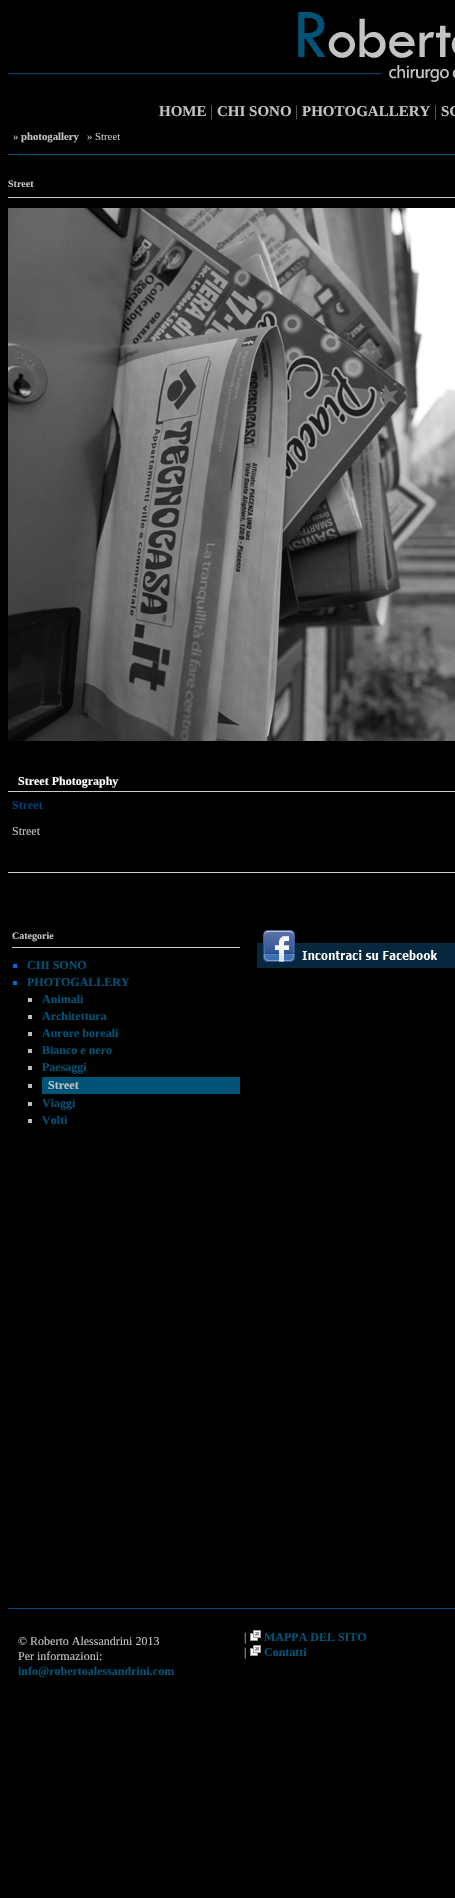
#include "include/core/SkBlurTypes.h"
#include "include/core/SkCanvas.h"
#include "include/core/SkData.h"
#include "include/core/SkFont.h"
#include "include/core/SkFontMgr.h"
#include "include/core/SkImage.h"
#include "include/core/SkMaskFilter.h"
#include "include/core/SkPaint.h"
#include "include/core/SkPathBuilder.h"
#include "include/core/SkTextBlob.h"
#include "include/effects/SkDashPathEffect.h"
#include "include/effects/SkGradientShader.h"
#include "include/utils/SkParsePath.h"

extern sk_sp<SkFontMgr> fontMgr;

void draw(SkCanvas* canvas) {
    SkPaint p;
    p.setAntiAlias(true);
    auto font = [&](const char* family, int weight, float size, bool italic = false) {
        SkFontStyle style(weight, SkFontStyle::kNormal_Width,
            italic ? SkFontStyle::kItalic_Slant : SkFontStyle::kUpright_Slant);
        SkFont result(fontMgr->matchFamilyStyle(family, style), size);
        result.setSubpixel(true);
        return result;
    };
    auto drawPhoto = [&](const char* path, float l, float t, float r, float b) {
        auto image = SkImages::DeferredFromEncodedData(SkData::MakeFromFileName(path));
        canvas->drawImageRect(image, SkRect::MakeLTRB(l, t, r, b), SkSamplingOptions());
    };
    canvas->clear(0xFF000000);
    drawPhoto("media/1.png", 8, 12, 455, 82);
    auto font1 = font("Liberation Serif", 700, 15);
    p.setColor(0xFFC3C3C3);
    canvas->drawString("HOME", 159, 116, font1, p);
    auto font2 = font("Liberation Serif", 400, 15);
    p.setColor(0xFF676767);
    canvas->drawString("|", 210, 116, font2, p);
    p.setColor(0xFFC3C3C3);
    canvas->drawString("CHI SONO", 217, 116, font1, p);
    p.setColor(0xFF676767);
    canvas->drawString("|", 295, 116, font2, p);
    p.setColor(0xFFC3C3C3);
    canvas->drawString("PHOTOGALLERY", 302, 116, font1, p);
    p.setColor(0xFF676767);
    canvas->drawString("|", 434, 116, font2, p);
    p.setColor(0xFFC3C3C3);
    canvas->drawString("SC", 441, 116, font1, p);
    auto font3 = font("Liberation Serif", 400, 10.75f);
    canvas->drawString("»", 13, 140, font3, p);
    auto font4 = font("Liberation Serif", 700, 10.75f);
    canvas->drawString("photogallery", 21, 140, font4, p);
    canvas->drawString("» Street", 87, 140, font3, p);
    p.setColor(0xFF005477);
    canvas->drawRect(SkRect::MakeLTRB(8, 154, 455, 155), p);
    p.setColor(0xFFCCCCCC);
    canvas->drawRect(SkRect::MakeLTRB(8, 197, 455, 198), p);
    auto font5 = font("Liberation Serif", 700, 10);
    p.setColor(0xFFC3C3C3);
    canvas->drawString("Street", 8, 187, font5, p);
    drawPhoto("media/2.png", 8, 208, 455, 741);
    p.setColor(0xFFCCCCCC);
    canvas->drawRect(SkRect::MakeLTRB(8, 872, 455, 873), p);
    canvas->drawRect(SkRect::MakeLTRB(8, 791, 455, 792), p);
    auto font6 = font("Liberation Serif", 700, 12);
    p.setColor(0xFFFFFFFF);
    canvas->drawString("Street Photography", 18, 785, font6, p);
    p.setColor(0xFF004080);
    canvas->drawString("Street", 12, 809, font6, p);
    auto font7 = font("Liberation Serif", 400, 12);
    p.setColor(0xFFC3C3C3);
    canvas->drawString("Street", 12, 835, font7, p);
    p.setColor(0xFFCCCCCC);
    canvas->drawRect(SkRect::MakeLTRB(12, 947, 240, 948), p);
    p.setColor(0xFFC3C3C3);
    canvas->drawString("Categorie", 12, 939, font5, p);
    p.setColor(0xFF006AD5);
    canvas->drawRect(SkRect::MakeLTRB(13, 964, 17, 968), p);
    p.setColor(0xFF005477);
    canvas->drawString("CHI SONO", 27, 969, font6, p);
    p.setColor(0xFF006AD5);
    canvas->drawRect(SkRect::MakeLTRB(13, 981, 17, 985), p);
    p.setColor(0xFF005477);
    canvas->drawString("PHOTOGALLERY", 27, 986, font6, p);
    p.setColor(0xFFBBBBBB);
    canvas->drawRect(SkRect::MakeLTRB(28, 998, 32, 1002), p);
    p.setColor(0xFF005477);
    canvas->drawString("Animali", 42, 1003, font6, p);
    p.setColor(0xFFBBBBBB);
    canvas->drawRect(SkRect::MakeLTRB(28, 1015, 32, 1019), p);
    p.setColor(0xFF005477);
    canvas->drawString("Architettura", 42, 1020, font6, p);
    p.setColor(0xFFBBBBBB);
    canvas->drawRect(SkRect::MakeLTRB(28, 1032, 32, 1036), p);
    p.setColor(0xFF005477);
    canvas->drawString("Aurore boreali", 42, 1037, font6, p);
    p.setColor(0xFFBBBBBB);
    canvas->drawRect(SkRect::MakeLTRB(28, 1049, 32, 1053), p);
    p.setColor(0xFF005477);
    canvas->drawString("Bianco e nero", 42, 1054, font6, p);
    p.setColor(0xFFBBBBBB);
    canvas->drawRect(SkRect::MakeLTRB(28, 1066, 32, 1070), p);
    p.setColor(0xFF005477);
    canvas->drawString("Paesaggi", 42, 1071, font6, p);
    p.setColor(0xFFBBBBBB);
    canvas->drawRect(SkRect::MakeLTRB(28, 1084, 32, 1088), p);
    p.setColor(0xFF005477);
    canvas->drawRect(SkRect::MakeLTRB(42, 1077, 240, 1094), p);
    p.setColor(0xFFC3C3C3);
    canvas->drawString("Street", 48, 1089, font6, p);
    p.setColor(0xFFBBBBBB);
    canvas->drawRect(SkRect::MakeLTRB(28, 1102, 32, 1106), p);
    p.setColor(0xFF005477);
    canvas->drawString("Viaggi", 42, 1107, font6, p);
    p.setColor(0xFFBBBBBB);
    canvas->drawRect(SkRect::MakeLTRB(28, 1119, 32, 1123), p);
    p.setColor(0xFF005477);
    canvas->drawString("Volti", 42, 1124, font6, p);
    drawPhoto("media/3.png", 257, 930, 455, 968);
    p.setColor(0xFF004080);
    canvas->drawRect(SkRect::MakeLTRB(8, 1608, 455, 1609), p);
    p.setColor(0xFFC3C3C3);
    canvas->drawString("© Roberto Alessandrini 2013", 18, 1645, font7, p);
    canvas->drawString("Per informazioni:", 18, 1660, font7, p);
    p.setColor(0xFF005477);
    canvas->drawString("info@robertoalessandrini.com", 18, 1675, font6, p);
    p.setColor(0xFFC3C3C3);
    canvas->drawString("|", 244, 1641, font7, p);
    drawPhoto("media/4.png", 250, 1630, 261, 1641);
    p.setColor(0xFF005477);
    canvas->drawString("MAPPA DEL SITO", 264, 1641, font6, p);
    p.setColor(0xFFC3C3C3);
    canvas->drawString("|", 244, 1656, font7, p);
    drawPhoto("media/4.png", 250, 1645, 261, 1656);
    p.setColor(0xFF005477);
    canvas->drawString("Contatti", 264, 1656, font6, p);
}
